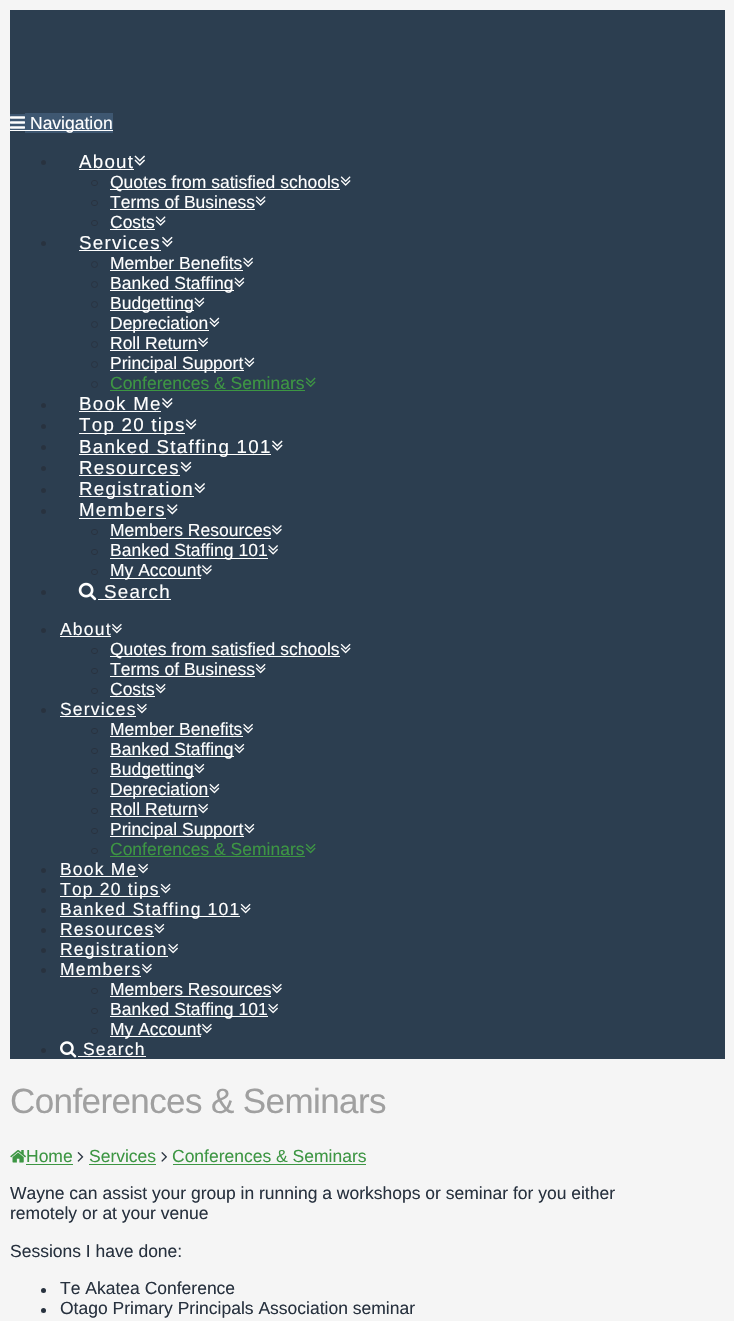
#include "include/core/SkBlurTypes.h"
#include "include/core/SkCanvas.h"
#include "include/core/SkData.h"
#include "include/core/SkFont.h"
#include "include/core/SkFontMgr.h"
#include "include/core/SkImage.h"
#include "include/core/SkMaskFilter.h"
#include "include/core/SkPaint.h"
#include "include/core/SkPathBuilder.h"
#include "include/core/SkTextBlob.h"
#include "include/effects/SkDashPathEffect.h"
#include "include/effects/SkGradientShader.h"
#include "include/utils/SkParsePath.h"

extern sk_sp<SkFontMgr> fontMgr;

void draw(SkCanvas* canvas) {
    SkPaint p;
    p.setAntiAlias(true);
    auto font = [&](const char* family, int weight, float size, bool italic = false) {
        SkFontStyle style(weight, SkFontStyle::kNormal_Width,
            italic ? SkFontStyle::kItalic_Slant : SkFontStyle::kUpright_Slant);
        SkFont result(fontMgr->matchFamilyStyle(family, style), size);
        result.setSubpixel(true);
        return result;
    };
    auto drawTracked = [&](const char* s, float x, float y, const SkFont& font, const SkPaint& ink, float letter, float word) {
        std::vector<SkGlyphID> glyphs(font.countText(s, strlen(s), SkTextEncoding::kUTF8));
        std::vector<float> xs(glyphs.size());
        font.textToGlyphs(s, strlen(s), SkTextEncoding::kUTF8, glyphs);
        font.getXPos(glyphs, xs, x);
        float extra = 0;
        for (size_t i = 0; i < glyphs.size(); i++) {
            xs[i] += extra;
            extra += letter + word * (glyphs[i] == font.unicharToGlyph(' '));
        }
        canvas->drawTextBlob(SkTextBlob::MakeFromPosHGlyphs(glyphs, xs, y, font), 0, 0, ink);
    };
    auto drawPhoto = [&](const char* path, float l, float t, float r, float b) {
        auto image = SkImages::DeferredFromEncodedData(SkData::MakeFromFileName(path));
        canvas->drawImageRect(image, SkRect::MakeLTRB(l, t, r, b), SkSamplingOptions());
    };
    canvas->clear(0xFFF5F5F5);
    {
        const struct { float l, t, r, b; SkColor color; } items[] = {
            {10, 10, 725, 1059, 0xFF2C3E50},
            {10, 114, 25, 130, 0xFF3E5771},
            {25, 113, 113, 133, 0xFF3E5771},
            {10, 130, 113, 131, 0xFFFFFFFF},
        };
        for (auto [l, t, r, b, color] : items) {
            p.setColor(color);
            canvas->drawRect(SkRect::MakeLTRB(l, t, r, b), p);
        }
    }
    drawPhoto("media/1.png", 10, 116, 25, 129);
    auto font1 = font("Liberation Sans", 400, 17.5f);
    canvas->drawString("Navigation", 30, 129, font1, p);
    p.setColor(0xFF28323F);
    canvas->drawCircle(43.5f, 162.5f, 2.5f, p);
    auto font2 = font("Liberation Sans", 400, 18.75f);
    p.setColor(0xFFFFFFFF);
    drawTracked("About", 79, 168, font2, p, 1.25f, 0);
    canvas->drawRect(SkRect::MakeLTRB(79, 169, 134, 170), p);
    drawPhoto("media/2.png", 134, 155, 145, 166);
    p.setStyle(SkPaint::kStroke_Style);
    p.setStrokeWidth(1);
    p.setColor(0xFF28323F);
    canvas->drawRoundRect(SkRect::MakeLTRB(91.5f, 180.5f, 97.5f, 185.5f), 2.5f, 2.5f, p);
    p.setStyle(SkPaint::kFill_Style);
    p.setColor(0xFFFFFFFF);
    canvas->drawRect(SkRect::MakeLTRB(110, 189, 340, 190), p);
    canvas->drawString("Quotes from satisfied schools", 110, 188, font1, p);
    drawPhoto("media/3.png", 340, 176, 351, 186);
    p.setStyle(SkPaint::kStroke_Style);
    p.setColor(0xFF28323F);
    canvas->drawRoundRect(SkRect::MakeLTRB(91.5f, 200.5f, 97.5f, 205.5f), 2.5f, 2.5f, p);
    p.setStyle(SkPaint::kFill_Style);
    p.setColor(0xFFFFFFFF);
    canvas->drawString("Terms of Business", 110, 208, font1, p);
    canvas->drawRect(SkRect::MakeLTRB(110, 209, 255, 210), p);
    drawPhoto("media/3.png", 255, 196, 266, 206);
    p.setStyle(SkPaint::kStroke_Style);
    p.setColor(0xFF28323F);
    canvas->drawRoundRect(SkRect::MakeLTRB(91.5f, 220.5f, 97.5f, 225.5f), 2.5f, 2.5f, p);
    p.setStyle(SkPaint::kFill_Style);
    p.setColor(0xFFFFFFFF);
    canvas->drawString("Costs", 110, 228, font1, p);
    canvas->drawRect(SkRect::MakeLTRB(110, 229, 155, 230), p);
    drawPhoto("media/3.png", 155, 216, 166, 226);
    p.setColor(0xFF28323F);
    canvas->drawCircle(43.5f, 243.5f, 2.5f, p);
    p.setColor(0xFFFFFFFF);
    drawTracked("Services", 79, 249, font2, p, 1.25f, 0);
    canvas->drawRect(SkRect::MakeLTRB(79, 250, 161, 251), p);
    drawPhoto("media/4.png", 162, 236, 173, 247);
    p.setStyle(SkPaint::kStroke_Style);
    p.setColor(0xFF28323F);
    canvas->drawCircle(94.5f, 264.5f, 3, p);
    p.setStyle(SkPaint::kFill_Style);
    p.setColor(0xFFFFFFFF);
    canvas->drawString("Member Benefits", 110, 269, font1, p);
    canvas->drawRect(SkRect::MakeLTRB(110, 270, 243, 271), p);
    drawPhoto("media/5.png", 243, 257, 253, 267);
    p.setStyle(SkPaint::kStroke_Style);
    p.setColor(0xFF28323F);
    canvas->drawCircle(94.5f, 284.5f, 3, p);
    p.setStyle(SkPaint::kFill_Style);
    p.setColor(0xFFFFFFFF);
    canvas->drawRect(SkRect::MakeLTRB(110, 290, 234, 291), p);
    canvas->drawString("Banked Staffing", 110, 289, font1, p);
    drawPhoto("media/6.png", 234, 277, 245, 287);
    p.setStyle(SkPaint::kStroke_Style);
    p.setColor(0xFF28323F);
    canvas->drawCircle(94.5f, 304.5f, 3, p);
    p.setStyle(SkPaint::kFill_Style);
    p.setColor(0xFFFFFFFF);
    canvas->drawRect(SkRect::MakeLTRB(110, 310, 194, 311), p);
    canvas->drawString("Budgetting", 110, 309, font1, p);
    drawPhoto("media/6.png", 194, 297, 205, 307);
    p.setStyle(SkPaint::kStroke_Style);
    p.setColor(0xFF28323F);
    canvas->drawCircle(94.5f, 324.5f, 3, p);
    p.setStyle(SkPaint::kFill_Style);
    p.setColor(0xFFFFFFFF);
    canvas->drawRect(SkRect::MakeLTRB(110, 330, 209, 331), p);
    canvas->drawString("Depreciation", 110, 329, font1, p);
    drawPhoto("media/6.png", 209, 317, 220, 327);
    p.setStyle(SkPaint::kStroke_Style);
    p.setColor(0xFF28323F);
    canvas->drawCircle(94.5f, 344.5f, 3, p);
    p.setStyle(SkPaint::kFill_Style);
    p.setColor(0xFFFFFFFF);
    canvas->drawString("Roll Return", 110, 349, font1, p);
    canvas->drawRect(SkRect::MakeLTRB(110, 350, 198, 351), p);
    drawPhoto("media/5.png", 198, 337, 208, 347);
    p.setStyle(SkPaint::kStroke_Style);
    p.setColor(0xFF28323F);
    canvas->drawCircle(94.5f, 364.5f, 3, p);
    p.setStyle(SkPaint::kFill_Style);
    p.setColor(0xFFFFFFFF);
    canvas->drawRect(SkRect::MakeLTRB(110, 370, 244, 371), p);
    canvas->drawString("Principal Support", 110, 369, font1, p);
    drawPhoto("media/6.png", 244, 357, 255, 367);
    p.setStyle(SkPaint::kStroke_Style);
    p.setColor(0xFF28323F);
    canvas->drawCircle(94.5f, 384.5f, 3, p);
    p.setStyle(SkPaint::kFill_Style);
    p.setColor(0xFF3D9643);
    canvas->drawString("Conferences & Seminars", 110, 389, font1, p);
    canvas->drawRect(SkRect::MakeLTRB(110, 390, 305, 391), p);
    drawPhoto("media/7.png", 305, 377, 316, 387);
    p.setColor(0xFF28323F);
    canvas->drawCircle(43.5f, 405.5f, 2.5f, p);
    p.setColor(0xFFFFFFFF);
    drawTracked("Book Me", 79, 410, font2, p, 1.25f, 0);
    canvas->drawRect(SkRect::MakeLTRB(79, 411, 161, 412), p);
    drawPhoto("media/8.png", 162, 398, 173, 409);
    p.setColor(0xFF28323F);
    canvas->drawCircle(43.5f, 426.5f, 2.5f, p);
    p.setColor(0xFFFFFFFF);
    canvas->drawRect(SkRect::MakeLTRB(79, 433, 185, 434), p);
    drawTracked("Top 20 tips", 79, 431, font2, p, 1.25f, 0);
    drawPhoto("media/9.png", 185, 419, 197, 430);
    p.setColor(0xFF28323F);
    canvas->drawCircle(43.5f, 447.5f, 2.5f, p);
    p.setColor(0xFFFFFFFF);
    canvas->drawRect(SkRect::MakeLTRB(79, 454, 271, 455), p);
    drawTracked("Banked Staffing 101", 79, 453, font2, p, 1.25f, 0);
    drawPhoto("media/10.png", 272, 440, 283, 451);
    p.setColor(0xFF28323F);
    canvas->drawCircle(43.5f, 468.5f, 2.5f, p);
    p.setColor(0xFFFFFFFF);
    drawTracked("Resources", 79, 474, font2, p, 1.25f, 0);
    canvas->drawRect(SkRect::MakeLTRB(79, 475, 180, 476), p);
    drawPhoto("media/11.png", 180, 461, 192, 472);
    p.setColor(0xFF28323F);
    canvas->drawCircle(43.5f, 490.5f, 2.5f, p);
    p.setColor(0xFFFFFFFF);
    canvas->drawRect(SkRect::MakeLTRB(79, 496, 194, 497), p);
    drawTracked("Registration", 79, 495, font2, p, 1.25f, 0);
    drawPhoto("media/12.png", 194, 483, 205, 494);
    p.setColor(0xFF28323F);
    canvas->drawCircle(43.5f, 511.5f, 2.5f, p);
    p.setColor(0xFFFFFFFF);
    drawTracked("Members", 79, 516, font2, p, 1.25f, 0);
    canvas->drawRect(SkRect::MakeLTRB(79, 518, 166, 519), p);
    drawPhoto("media/13.png", 167, 504, 178, 515);
    p.setStyle(SkPaint::kStroke_Style);
    p.setColor(0xFF28323F);
    canvas->drawRoundRect(SkRect::MakeLTRB(91.5f, 529.5f, 97.5f, 534.5f), 2.5f, 2.5f, p);
    p.setStyle(SkPaint::kFill_Style);
    p.setColor(0xFFFFFFFF);
    canvas->drawString("Members Resources", 110, 536, font1, p);
    canvas->drawRect(SkRect::MakeLTRB(110, 538, 271, 539), p);
    drawPhoto("media/14.png", 272, 525, 282, 535);
    p.setStyle(SkPaint::kStroke_Style);
    p.setColor(0xFF28323F);
    canvas->drawRoundRect(SkRect::MakeLTRB(91.5f, 549.5f, 97.5f, 554.5f), 2.5f, 2.5f, p);
    p.setStyle(SkPaint::kFill_Style);
    p.setColor(0xFFFFFFFF);
    canvas->drawRect(SkRect::MakeLTRB(110, 558, 268, 559), p);
    canvas->drawString("Banked Staffing 101", 110, 556, font1, p);
    drawPhoto("media/15.png", 268, 545, 278, 555);
    p.setStyle(SkPaint::kStroke_Style);
    p.setColor(0xFF28323F);
    canvas->drawRoundRect(SkRect::MakeLTRB(91.5f, 569.5f, 97.5f, 574.5f), 2.5f, 2.5f, p);
    p.setStyle(SkPaint::kFill_Style);
    p.setColor(0xFFFFFFFF);
    canvas->drawRect(SkRect::MakeLTRB(110, 578, 201, 579), p);
    canvas->drawString("My Account", 110, 576, font1, p);
    drawPhoto("media/14.png", 202, 565, 212, 575);
    p.setColor(0xFF28323F);
    canvas->drawCircle(43.5f, 592.5f, 2.5f, p);
    drawPhoto("media/16.png", 78, 582, 97, 601);
    p.setColor(0xFFFFFFFF);
    drawTracked("Search", 104, 598, font2, p, 1.25f, 0);
    canvas->drawRect(SkRect::MakeLTRB(98, 599, 171, 600), p);
    p.setColor(0xFF28323F);
    canvas->drawCircle(43.5f, 630.5f, 2.5f, p);
    p.setColor(0xFFFFFFFF);
    drawTracked("About", 60, 635, font1, p, 1.2f, 0);
    canvas->drawRect(SkRect::MakeLTRB(60, 636, 111, 637), p);
    drawPhoto("media/17.png", 112, 623, 122, 634);
    p.setStyle(SkPaint::kStroke_Style);
    p.setColor(0xFF28323F);
    canvas->drawRoundRect(SkRect::MakeLTRB(91.5f, 648.5f, 97.5f, 653.5f), 2.5f, 2.5f, p);
    p.setStyle(SkPaint::kFill_Style);
    p.setColor(0xFFFFFFFF);
    canvas->drawRect(SkRect::MakeLTRB(110, 656, 340, 657), p);
    canvas->drawString("Quotes from satisfied schools", 110, 655, font1, p);
    drawPhoto("media/18.png", 340, 643, 351, 654);
    p.setStyle(SkPaint::kStroke_Style);
    p.setColor(0xFF28323F);
    canvas->drawRoundRect(SkRect::MakeLTRB(91.5f, 668.5f, 97.5f, 673.5f), 2.5f, 2.5f, p);
    p.setStyle(SkPaint::kFill_Style);
    p.setColor(0xFFFFFFFF);
    canvas->drawString("Terms of Business", 110, 675, font1, p);
    canvas->drawRect(SkRect::MakeLTRB(110, 676, 255, 677), p);
    drawPhoto("media/18.png", 255, 663, 266, 674);
    p.setStyle(SkPaint::kStroke_Style);
    p.setColor(0xFF28323F);
    canvas->drawRoundRect(SkRect::MakeLTRB(91.5f, 688.5f, 97.5f, 693.5f), 2.5f, 2.5f, p);
    p.setStyle(SkPaint::kFill_Style);
    p.setColor(0xFFFFFFFF);
    canvas->drawString("Costs", 110, 695, font1, p);
    canvas->drawRect(SkRect::MakeLTRB(110, 696, 155, 697), p);
    drawPhoto("media/18.png", 155, 683, 166, 694);
    p.setColor(0xFF28323F);
    canvas->drawCircle(43.5f, 710.5f, 2.5f, p);
    p.setColor(0xFFFFFFFF);
    drawTracked("Services", 60, 715, font1, p, 1.2f, 0);
    canvas->drawRect(SkRect::MakeLTRB(60, 716, 136, 717), p);
    drawPhoto("media/17.png", 137, 703, 147, 714);
    p.setStyle(SkPaint::kStroke_Style);
    p.setColor(0xFF28323F);
    canvas->drawRoundRect(SkRect::MakeLTRB(91.5f, 728.5f, 97.5f, 733.5f), 2.5f, 2.5f, p);
    p.setStyle(SkPaint::kFill_Style);
    p.setColor(0xFFFFFFFF);
    canvas->drawString("Member Benefits", 110, 735, font1, p);
    canvas->drawRect(SkRect::MakeLTRB(110, 736, 243, 737), p);
    drawPhoto("media/19.png", 243, 723, 253, 734);
    p.setStyle(SkPaint::kStroke_Style);
    p.setColor(0xFF28323F);
    canvas->drawRoundRect(SkRect::MakeLTRB(91.5f, 748.5f, 97.5f, 753.5f), 2.5f, 2.5f, p);
    p.setStyle(SkPaint::kFill_Style);
    p.setColor(0xFFFFFFFF);
    canvas->drawRect(SkRect::MakeLTRB(110, 756, 234, 757), p);
    canvas->drawString("Banked Staffing", 110, 755, font1, p);
    drawPhoto("media/20.png", 234, 743, 245, 754);
    p.setStyle(SkPaint::kStroke_Style);
    p.setColor(0xFF28323F);
    canvas->drawRoundRect(SkRect::MakeLTRB(91.5f, 768.5f, 97.5f, 773.5f), 2.5f, 2.5f, p);
    p.setStyle(SkPaint::kFill_Style);
    p.setColor(0xFFFFFFFF);
    canvas->drawRect(SkRect::MakeLTRB(110, 776, 194, 777), p);
    canvas->drawString("Budgetting", 110, 775, font1, p);
    drawPhoto("media/20.png", 194, 763, 205, 774);
    p.setStyle(SkPaint::kStroke_Style);
    p.setColor(0xFF28323F);
    canvas->drawRoundRect(SkRect::MakeLTRB(91.5f, 788.5f, 97.5f, 793.5f), 2.5f, 2.5f, p);
    p.setStyle(SkPaint::kFill_Style);
    p.setColor(0xFFFFFFFF);
    canvas->drawRect(SkRect::MakeLTRB(110, 796, 209, 797), p);
    canvas->drawString("Depreciation", 110, 795, font1, p);
    drawPhoto("media/20.png", 209, 783, 220, 794);
    p.setStyle(SkPaint::kStroke_Style);
    p.setColor(0xFF28323F);
    canvas->drawRoundRect(SkRect::MakeLTRB(91.5f, 808.5f, 97.5f, 813.5f), 2.5f, 2.5f, p);
    p.setStyle(SkPaint::kFill_Style);
    p.setColor(0xFFFFFFFF);
    canvas->drawString("Roll Return", 110, 815, font1, p);
    canvas->drawRect(SkRect::MakeLTRB(110, 816, 198, 817), p);
    drawPhoto("media/19.png", 198, 803, 208, 814);
    p.setStyle(SkPaint::kStroke_Style);
    p.setColor(0xFF28323F);
    canvas->drawRoundRect(SkRect::MakeLTRB(91.5f, 828.5f, 97.5f, 833.5f), 2.5f, 2.5f, p);
    p.setStyle(SkPaint::kFill_Style);
    p.setColor(0xFFFFFFFF);
    canvas->drawRect(SkRect::MakeLTRB(110, 836, 244, 837), p);
    canvas->drawString("Principal Support", 110, 835, font1, p);
    drawPhoto("media/20.png", 244, 823, 255, 834);
    p.setStyle(SkPaint::kStroke_Style);
    p.setColor(0xFF28323F);
    canvas->drawRoundRect(SkRect::MakeLTRB(91.5f, 848.5f, 97.5f, 853.5f), 2.5f, 2.5f, p);
    p.setStyle(SkPaint::kFill_Style);
    p.setColor(0xFF3D9643);
    canvas->drawString("Conferences & Seminars", 110, 855, font1, p);
    canvas->drawRect(SkRect::MakeLTRB(110, 856, 305, 857), p);
    drawPhoto("media/21.png", 305, 844, 316, 854);
    p.setColor(0xFF28323F);
    canvas->drawCircle(43.5f, 870.5f, 2.5f, p);
    p.setColor(0xFFFFFFFF);
    drawTracked("Book Me", 60, 875, font1, p, 1.2f, 0);
    canvas->drawRect(SkRect::MakeLTRB(60, 876, 138, 877), p);
    drawPhoto("media/19.png", 138, 863, 148, 874);
    p.setColor(0xFF28323F);
    canvas->drawCircle(43.5f, 890.5f, 2.5f, p);
    p.setColor(0xFFFFFFFF);
    canvas->drawRect(SkRect::MakeLTRB(60, 896, 160, 897), p);
    drawTracked("Top 20 tips", 60, 895, font1, p, 1.2f, 0);
    drawPhoto("media/18.png", 160, 883, 171, 894);
    p.setColor(0xFF28323F);
    canvas->drawCircle(43.5f, 910.5f, 2.5f, p);
    p.setColor(0xFFFFFFFF);
    canvas->drawRect(SkRect::MakeLTRB(60, 916, 240, 917), p);
    drawTracked("Banked Staffing 101", 60, 915, font1, p, 1.2f, 0);
    drawPhoto("media/18.png", 240, 903, 251, 914);
    p.setColor(0xFF28323F);
    canvas->drawCircle(43.5f, 930.5f, 2.5f, p);
    p.setColor(0xFFFFFFFF);
    drawTracked("Resources", 60, 935, font1, p, 1.2f, 0);
    canvas->drawRect(SkRect::MakeLTRB(60, 936, 154, 937), p);
    drawPhoto("media/20.png", 154, 923, 165, 934);
    p.setColor(0xFF28323F);
    canvas->drawCircle(43.5f, 950.5f, 2.5f, p);
    p.setColor(0xFFFFFFFF);
    canvas->drawRect(SkRect::MakeLTRB(60, 956, 168, 957), p);
    drawTracked("Registration", 60, 955, font1, p, 1.2f, 0);
    drawPhoto("media/19.png", 168, 943, 178, 954);
    p.setColor(0xFF28323F);
    canvas->drawCircle(43.5f, 970.5f, 2.5f, p);
    p.setColor(0xFFFFFFFF);
    drawTracked("Members", 60, 975, font1, p, 1.2f, 0);
    canvas->drawRect(SkRect::MakeLTRB(60, 976, 141, 977), p);
    drawPhoto("media/17.png", 142, 963, 152, 974);
    p.setStyle(SkPaint::kStroke_Style);
    p.setColor(0xFF28323F);
    canvas->drawRoundRect(SkRect::MakeLTRB(91.5f, 988.5f, 97.5f, 993.5f), 2.5f, 2.5f, p);
    p.setStyle(SkPaint::kFill_Style);
    p.setColor(0xFFFFFFFF);
    canvas->drawString("Members Resources", 110, 995, font1, p);
    canvas->drawRect(SkRect::MakeLTRB(110, 996, 271, 997), p);
    drawPhoto("media/17.png", 272, 983, 282, 994);
    p.setStyle(SkPaint::kStroke_Style);
    p.setColor(0xFF28323F);
    canvas->drawRoundRect(SkRect::MakeLTRB(91.5f, 1008.5f, 97.5f, 1013.5f), 2.5f, 2.5f, p);
    p.setStyle(SkPaint::kFill_Style);
    p.setColor(0xFFFFFFFF);
    canvas->drawRect(SkRect::MakeLTRB(110, 1016, 268, 1017), p);
    canvas->drawString("Banked Staffing 101", 110, 1015, font1, p);
    drawPhoto("media/19.png", 268, 1003, 278, 1014);
    p.setStyle(SkPaint::kStroke_Style);
    p.setColor(0xFF28323F);
    canvas->drawRoundRect(SkRect::MakeLTRB(91.5f, 1028.5f, 97.5f, 1033.5f), 2.5f, 2.5f, p);
    p.setStyle(SkPaint::kFill_Style);
    p.setColor(0xFFFFFFFF);
    canvas->drawRect(SkRect::MakeLTRB(110, 1036, 201, 1037), p);
    canvas->drawString("My Account", 110, 1035, font1, p);
    drawPhoto("media/17.png", 202, 1023, 212, 1034);
    p.setColor(0xFF28323F);
    canvas->drawCircle(43.5f, 1050.5f, 2.5f, p);
    drawPhoto("media/22.png", 60, 1041, 77, 1058);
    p.setColor(0xFFFFFFFF);
    drawTracked("Search", 83, 1055, font1, p, 1.2f, 0);
    canvas->drawRect(SkRect::MakeLTRB(78, 1056, 146, 1057), p);
    auto font3 = font("Liberation Sans", 400, 35);
    p.setColor(0xFFA0A0A0);
    drawTracked("Conferences & Seminars", 10, 1113, font3, p, -0.6f, 0);
    drawPhoto("media/23.png", 10, 1150, 26, 1163);
    p.setColor(0xFF3D9643);
    canvas->drawString("Home", 26, 1162, font1, p);
    canvas->drawRect(SkRect::MakeLTRB(26, 1164, 73, 1165), p);
    drawPhoto("media/24.png", 77, 1152, 84, 1162);
    canvas->drawString("Services", 89, 1162, font1, p);
    canvas->drawRect(SkRect::MakeLTRB(89, 1164, 156, 1165), p);
    drawPhoto("media/25.png", 161, 1152, 167, 1162);
    canvas->drawString("Conferences & Seminars", 172, 1162, font1, p);
    canvas->drawRect(SkRect::MakeLTRB(173, 1164, 366, 1165), p);
    p.setColor(0xFF28323F);
    {
        const struct { const char* s; float x, y; } items[] = {
            {"Wayne can assist your group in running a workshops or seminar for you either", 10, 1199},
            {"remotely or at your venue", 10, 1219},
            {"Sessions I have done:", 10, 1257},
        };
        for (auto [s, x, y] : items) {
            canvas->drawString(s, x, y, font1, p);
        }
    }
    canvas->drawCircle(43.5f, 1290.5f, 2.5f, p);
    canvas->drawString("Te Akatea Conference", 60, 1294, font1, p);
    canvas->drawCircle(43.5f, 1310.5f, 2.5f, p);
    canvas->drawString("Otago Primary Principals Association seminar", 60, 1314, font1, p);
}
